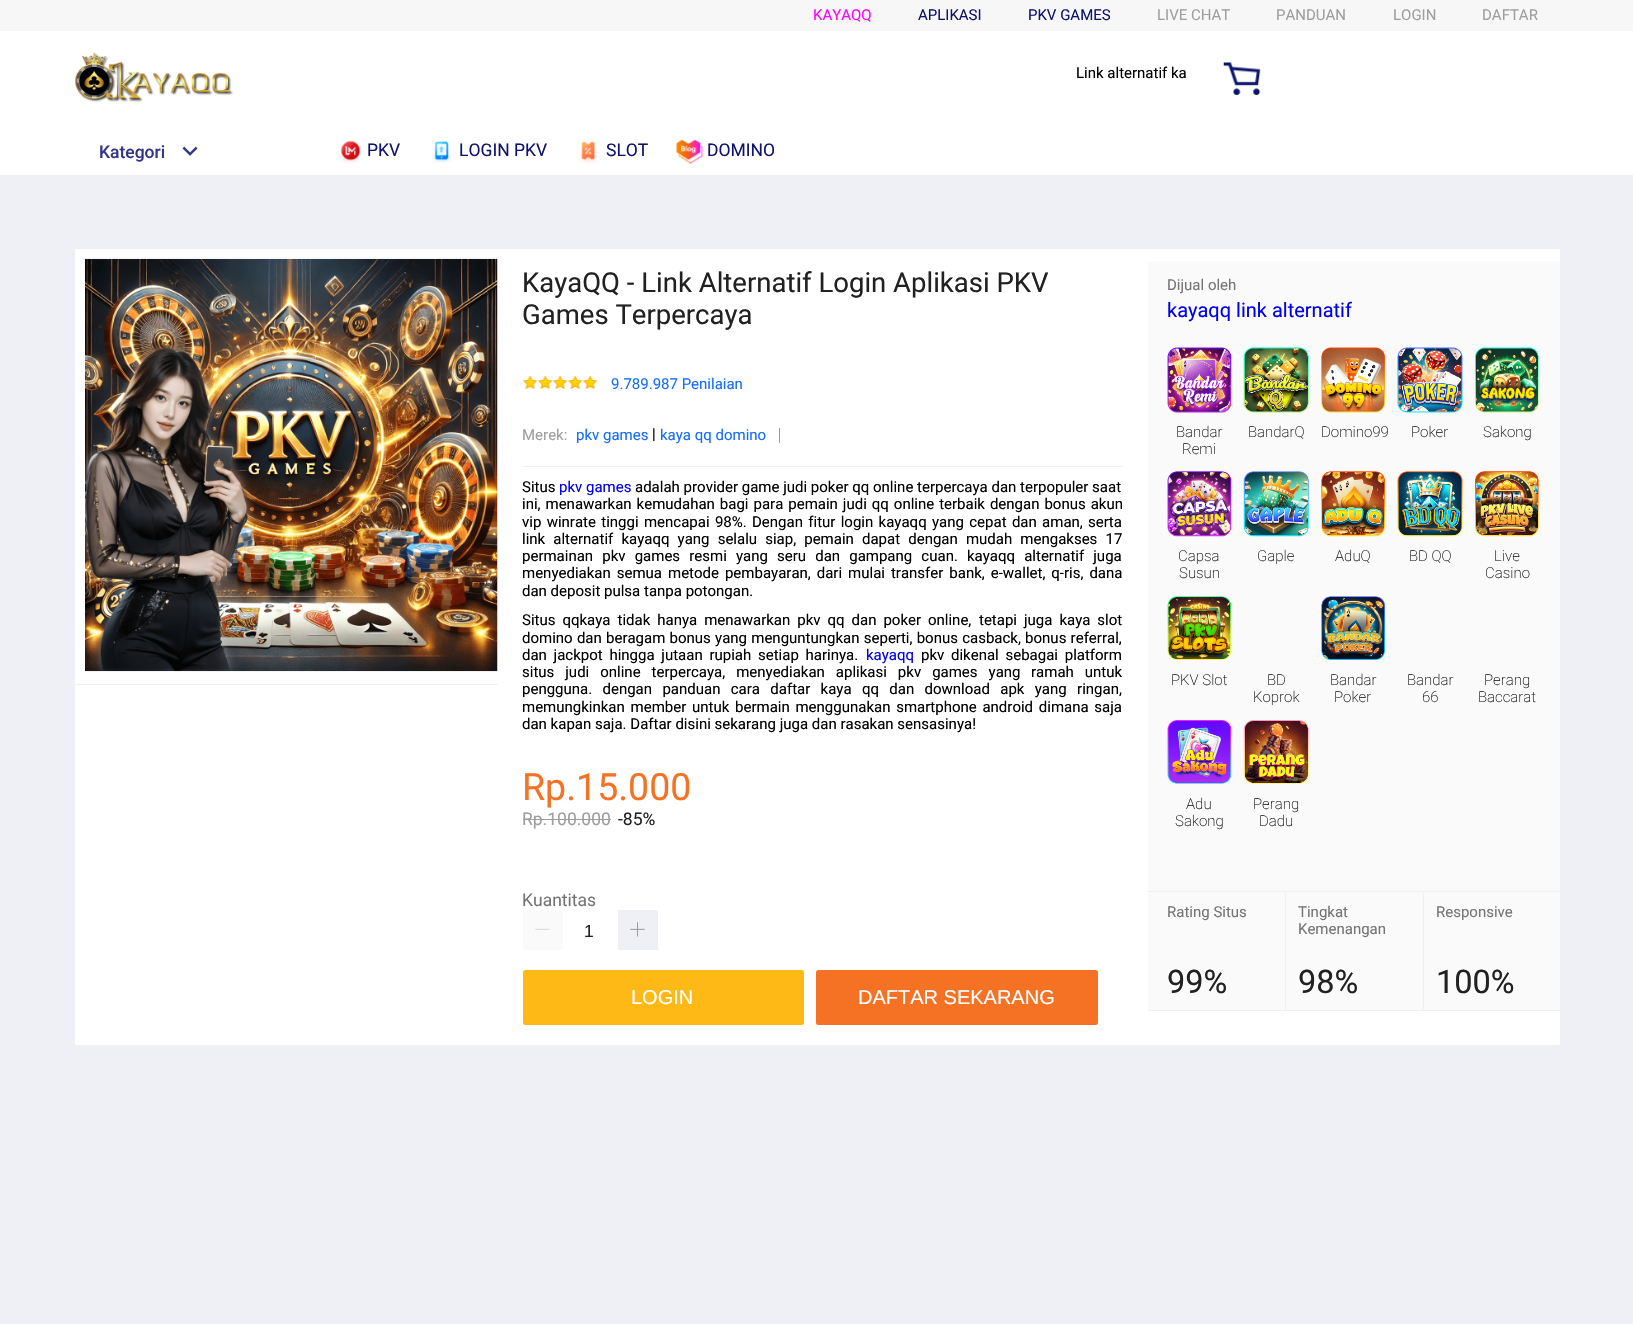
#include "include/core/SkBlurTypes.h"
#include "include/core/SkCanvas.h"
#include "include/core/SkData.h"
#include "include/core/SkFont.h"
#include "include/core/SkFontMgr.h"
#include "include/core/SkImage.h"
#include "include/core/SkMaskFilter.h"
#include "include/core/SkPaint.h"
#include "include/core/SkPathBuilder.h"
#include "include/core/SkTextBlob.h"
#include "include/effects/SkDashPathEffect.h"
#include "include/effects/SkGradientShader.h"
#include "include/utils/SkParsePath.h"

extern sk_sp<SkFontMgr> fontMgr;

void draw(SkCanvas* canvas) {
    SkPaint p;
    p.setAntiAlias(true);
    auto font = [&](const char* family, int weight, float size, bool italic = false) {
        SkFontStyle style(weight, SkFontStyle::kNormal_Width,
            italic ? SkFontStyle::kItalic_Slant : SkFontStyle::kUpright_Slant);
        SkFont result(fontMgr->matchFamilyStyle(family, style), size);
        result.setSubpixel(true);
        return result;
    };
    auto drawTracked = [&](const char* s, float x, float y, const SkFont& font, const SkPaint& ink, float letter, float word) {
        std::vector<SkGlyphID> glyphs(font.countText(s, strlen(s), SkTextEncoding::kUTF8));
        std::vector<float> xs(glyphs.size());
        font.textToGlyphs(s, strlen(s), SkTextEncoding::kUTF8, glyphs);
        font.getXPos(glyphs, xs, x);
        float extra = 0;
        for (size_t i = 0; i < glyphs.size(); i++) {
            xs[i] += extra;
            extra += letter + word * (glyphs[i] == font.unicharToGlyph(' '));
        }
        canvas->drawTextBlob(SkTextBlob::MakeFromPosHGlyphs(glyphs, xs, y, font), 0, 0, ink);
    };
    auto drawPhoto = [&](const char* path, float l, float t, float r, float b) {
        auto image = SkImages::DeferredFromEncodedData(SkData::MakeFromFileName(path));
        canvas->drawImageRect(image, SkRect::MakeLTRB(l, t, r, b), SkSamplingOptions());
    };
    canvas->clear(0xFFEFF0F5);
    p.setColor(0xFFFFFFFF);
    canvas->drawRect(SkRect::MakeLTRB(0, 31, 1633, 175), p);
    p.setColor(0xFFF7F7F7);
    canvas->drawRect(SkRect::MakeLTRB(0, 0, 1633, 31), p);
    auto font1 = font("Roboto", 400, 15);
    p.setColor(0xFFFF00FF);
    canvas->drawString("KAYAQQ", 813, 20, font1, p);
    p.setColor(0xFF0F136D);
    canvas->drawString("APLIKASI", 918, 20, font1, p);
    canvas->drawString("PKV GAMES", 1028, 20, font1, p);
    p.setColor(0xFF9E9E9E);
    {
        const struct { const char* s; float x, y; } items[] = {
            {"LIVE CHAT", 1157, 20},
            {"PANDUAN", 1276, 20},
            {"LOGIN", 1393, 20},
            {"DAFTAR", 1482, 20},
        };
        for (auto [s, x, y] : items) {
            canvas->drawString(s, x, y, font1, p);
        }
    }
    drawPhoto("media/1.png", 75, 52, 233, 102);
    p.setColor(0xFF000000);
    canvas->drawString("Link alternatif ka", 1076, 78, font1, p);
    drawPhoto("media/2.png", 1223, 62, 1261, 95);
    auto font2 = font("Roboto", 500, 17.5f);
    p.setColor(0xFF333683);
    canvas->drawString("Kategori", 99, 158, font2, p);
    drawPhoto("media/3.png", 182, 146, 198, 156);
    drawPhoto("media/4.png", 340, 140, 361, 163);
    auto font3 = font("Roboto", 400, 17.5f);
    p.setColor(0xFF0F136D);
    canvas->drawString("PKV", 367, 156, font3, p);
    drawPhoto("media/5.png", 433, 141, 452, 163);
    canvas->drawString("LOGIN PKV", 459, 156, font3, p);
    drawPhoto("media/6.png", 579, 141, 598, 164);
    canvas->drawString("SLOT", 606, 156, font3, p);
    drawPhoto("media/7.png", 676, 139, 704, 164);
    canvas->drawString("DOMINO", 707, 156, font3, p);
    p.setColor(0xFFFFFFFF);
    canvas->drawRect(SkRect::MakeLTRB(75, 249, 1560, 1045), p);
    p.setColor(0xFFEFF0F5);
    canvas->drawRect(SkRect::MakeLTRB(75, 684, 498, 685), p);
    drawPhoto("media/8.png", 85, 258, 498, 672);
    auto font4 = font("Roboto", 400, 27.5f);
    p.setColor(0xFF212121);
    canvas->drawString("KayaQQ - Link Alternatif Login Aplikasi PKV", 522, 292, font4, p);
    canvas->drawString("Games Terpercaya", 522, 324, font4, p);
    drawPhoto("media/9.png", 522, 375, 538, 389);
    drawPhoto("media/10.png", 537, 375, 553, 389);
    drawPhoto("media/10.png", 552, 375, 568, 389);
    drawPhoto("media/10.png", 567, 375, 583, 389);
    drawPhoto("media/10.png", 582, 375, 598, 389);
    p.setColor(0xFF136CFF);
    canvas->drawString("9.789.987 Penilaian", 611, 389, font1, p);
    p.setColor(0xFFEFF0F5);
    canvas->drawRect(SkRect::MakeLTRB(523, 466, 1123, 467), p);
    p.setColor(0xFF9E9E9E);
    canvas->drawString("Merek:", 522, 440, font1, p);
    p.setColor(0xFF136CFF);
    canvas->drawString("pkv games", 576, 440, font1, p);
    p.setColor(0xFF000000);
    canvas->drawString("|", 652, 439, font1, p);
    p.setColor(0xFF136CFF);
    canvas->drawString("kaya qq domino", 660, 440, font1, p);
    p.setColor(0xFF9E9E9E);
    canvas->drawRect(SkRect::MakeLTRB(779, 428, 780, 443), p);
    p.setColor(0xFF000000);
    canvas->drawString("Situs", 522, 492, font1, p);
    p.setColor(0xFF0000EE);
    canvas->drawString("pkv games", 559, 492, font1, p);
    p.setColor(0xFF000000);
    canvas->drawString("adalah provider game judi poker qq online terpercaya dan terpopuler saat", 635, 492, font1, p);
    drawTracked("ini, menawarkan kemudahan bagi para pemain judi qq online terbaik dengan bonus akun", 522, 509, font1, p, 0, 1.25f);
    drawTracked("vip winrate tinggi mencapai 98%. Dengan fitur login kayaqq yang cepat dan aman,", 522, 527, font1, p, 0, 1.6f);
    canvas->drawString("serta", 1088, 527, font1, p);
    drawTracked("link alternatif kayaqq yang selalu siap, pemain dapat dengan mudah mengakses 17", 522, 544, font1, p, 0, 4.4f);
    drawTracked("permainan pkv games resmi yang seru dan gampang cuan. kayaqq alternatif juga", 522, 561, font1, p, 0, 5.4f);
    drawTracked("menyediakan semua metode pembayaran, dari mulai transfer bank, e-wallet, q-ris, dana", 522, 578, font1, p, 0, 2.25f);
    canvas->drawString("dan deposit pulsa tanpa potongan.", 522, 596, font1, p);
    drawTracked("Situs qqkaya tidak hanya menawarkan pkv qq dan poker online,", 522, 625, font1, p, 0, 3.25f);
    drawTracked("tetapi juga kaya slot", 979, 625, font1, p, 0, 3.25f);
    drawTracked("domino dan beragam bonus yang menguntungkan seperti, bonus casback, bonus referral,", 522, 643, font1, p, 0, 0.5f);
    drawTracked("dan jackpot hingga jutaan rupiah setiap harinya.", 522, 660, font1, p, 0, 3);
    p.setColor(0xFF0000EE);
    canvas->drawString("kayaqq", 866, 660, font1, p);
    p.setColor(0xFF000000);
    drawTracked("pkv dikenal sebagai platform", 921, 660, font1, p, 0, 3);
    drawTracked("situs judi online terpercaya, menyediakan aplikasi pkv games yang", 522, 677, font1, p, 0, 7.25f);
    drawTracked("ramah untuk", 1031, 677, font1, p, 0, 7.25f);
    drawTracked("pengguna. dengan panduan cara daftar kaya qq dan download apk yang ringan,", 522, 694, font1, p, 0, 6.6f);
    drawTracked("memungkinkan member untuk bermain menggunakan smartphone android dimana saja", 522, 712, font1, p, 0, 2);
    canvas->drawString("dan kapan saja. Daftar disini sekarang juga dan rasakan sensasinya!", 522, 729, font1, p);
    auto font5 = font("Roboto", 400, 37.5f);
    p.setColor(0xFFF57224);
    canvas->drawString("Rp.15.000", 522, 800, font5, p);
    p.setColor(0xFF9E9E9E);
    canvas->drawString("Rp.100.000", 522, 825, font3, p);
    canvas->drawRect(SkRect::MakeLTRB(523, 819, 611, 820), p);
    p.setColor(0xFF212121);
    canvas->drawString("-85%", 618, 825, font3, p);
    p.setColor(0xFF757575);
    canvas->drawString("Kuantitas", 522, 906, font3, p);
    p.setColor(0xFFFAFAFA);
    canvas->drawRect(SkRect::MakeLTRB(523, 910, 563, 950), p);
    drawPhoto("media/11.png", 535, 928, 550, 930);
    p.setColor(0xFFEFF0F5);
    canvas->drawRect(SkRect::MakeLTRB(618, 910, 658, 950), p);
    drawPhoto("media/12.png", 630, 922, 645, 937);
    auto font6 = font("Liberation Sans", 400, 17.5f);
    p.setColor(0xFF212121);
    canvas->drawString("1", 584, 937, font6, p);
    p.setColor(0xFFFFB916);
    canvas->drawRoundRect(SkRect::MakeLTRB(523, 970, 804, 1025), 2.5f, 2.5f, p);
    auto font7 = font("Liberation Sans", 400, 20);
    p.setColor(0xFFFFFFFF);
    canvas->drawString("LOGIN", 631, 1004, font7, p);
    p.setColor(0xFFF57224);
    canvas->drawRoundRect(SkRect::MakeLTRB(816, 970, 1098, 1025), 2.5f, 2.5f, p);
    p.setColor(0xFFFFFFFF);
    canvas->drawString("DAFTAR SEKARANG", 858, 1004, font7, p);
    p.setColor(0xFFFAFAFA);
    canvas->drawRect(SkRect::MakeLTRB(1148, 261, 1560, 1010), p);
    p.setColor(0xFF757575);
    canvas->drawString("Dijual oleh", 1167, 290, font1, p);
    auto font8 = font("Roboto", 400, 20);
    p.setColor(0xFF0000EE);
    canvas->drawString("kayaqq link alternatif", 1167, 317, font8, p);
    drawPhoto("media/13.png", 1167, 347, 1232, 413);
    auto font9 = font("Roboto", 200, 15);
    p.setColor(0xFF212121);
    canvas->drawString("Bandar", 1176, 437, font9, p);
    canvas->drawString("Remi", 1182, 454, font9, p);
    drawPhoto("media/14.png", 1243, 347, 1309, 413);
    canvas->drawString("BandarQ", 1248, 437, font9, p);
    drawPhoto("media/15.png", 1321, 347, 1385, 413);
    canvas->drawString("Domino99", 1321, 437, font9, p);
    drawPhoto("media/16.png", 1397, 347, 1463, 413);
    canvas->drawString("Poker", 1411, 437, font9, p);
    drawPhoto("media/17.png", 1475, 347, 1539, 413);
    canvas->drawString("Sakong", 1483, 437, font9, p);
    drawPhoto("media/18.png", 1167, 471, 1232, 537);
    canvas->drawString("Capsa", 1178, 561, font9, p);
    canvas->drawString("Susun", 1179, 578, font9, p);
    drawPhoto("media/19.png", 1243, 471, 1309, 537);
    canvas->drawString("Gaple", 1257, 561, font9, p);
    drawPhoto("media/20.png", 1321, 471, 1385, 537);
    canvas->drawString("AduQ", 1335, 561, font9, p);
    drawPhoto("media/21.png", 1397, 471, 1463, 537);
    canvas->drawString("BD QQ", 1409, 561, font9, p);
    drawPhoto("media/22.png", 1475, 471, 1539, 537);
    canvas->drawString("Live", 1494, 561, font9, p);
    canvas->drawString("Casino", 1485, 578, font9, p);
    drawPhoto("media/23.png", 1167, 596, 1232, 660);
    {
        const struct { const char* s; float x, y; } items[] = {
            {"PKV Slot", 1171, 685},
            {"BD", 1267, 685},
            {"Koprok", 1253, 702},
        };
        for (auto [s, x, y] : items) {
            canvas->drawString(s, x, y, font9, p);
        }
    }
    drawPhoto("media/24.png", 1321, 596, 1385, 660);
    {
        const struct { const char* s; float x, y; } items[] = {
            {"Bandar", 1330, 685},
            {"Poker", 1334, 702},
            {"Bandar", 1407, 685},
            {"66", 1422, 702},
            {"Perang", 1484, 685},
            {"Baccarat", 1478, 702},
        };
        for (auto [s, x, y] : items) {
            canvas->drawString(s, x, y, font9, p);
        }
    }
    drawPhoto("media/25.png", 1167, 720, 1232, 784);
    canvas->drawString("Adu", 1186, 809, font9, p);
    canvas->drawString("Sakong", 1175, 826, font9, p);
    drawPhoto("media/26.png", 1243, 720, 1309, 784);
    canvas->drawString("Perang", 1253, 809, font9, p);
    canvas->drawString("Dadu", 1259, 826, font9, p);
    p.setColor(0xFFEFF0F5);
    canvas->drawRect(SkRect::MakeLTRB(1148, 891, 1560, 892), p);
    p.setColor(0xFF757575);
    canvas->drawString("Rating Situs", 1167, 917, font1, p);
    auto font10 = font("Roboto", 400, 32.5f);
    p.setColor(0xFF212121);
    canvas->drawString("99%", 1167, 993, font10, p);
    p.setColor(0xFFEFF0F5);
    canvas->drawRect(SkRect::MakeLTRB(1285, 893, 1286, 1010), p);
    p.setColor(0xFF757575);
    canvas->drawString("Tingkat", 1298, 917, font1, p);
    canvas->drawString("Kemenangan", 1298, 934, font1, p);
    p.setColor(0xFF212121);
    canvas->drawString("98%", 1298, 993, font10, p);
    p.setColor(0xFFEFF0F5);
    canvas->drawRect(SkRect::MakeLTRB(1423, 893, 1424, 1010), p);
    p.setColor(0xFF757575);
    canvas->drawString("Responsive", 1436, 917, font1, p);
    p.setColor(0xFF212121);
    canvas->drawString("100%", 1436, 993, font10, p);
    p.setColor(0xFFEFF0F5);
    canvas->drawRect(SkRect::MakeLTRB(1148, 1010, 1560, 1011), p);
}
